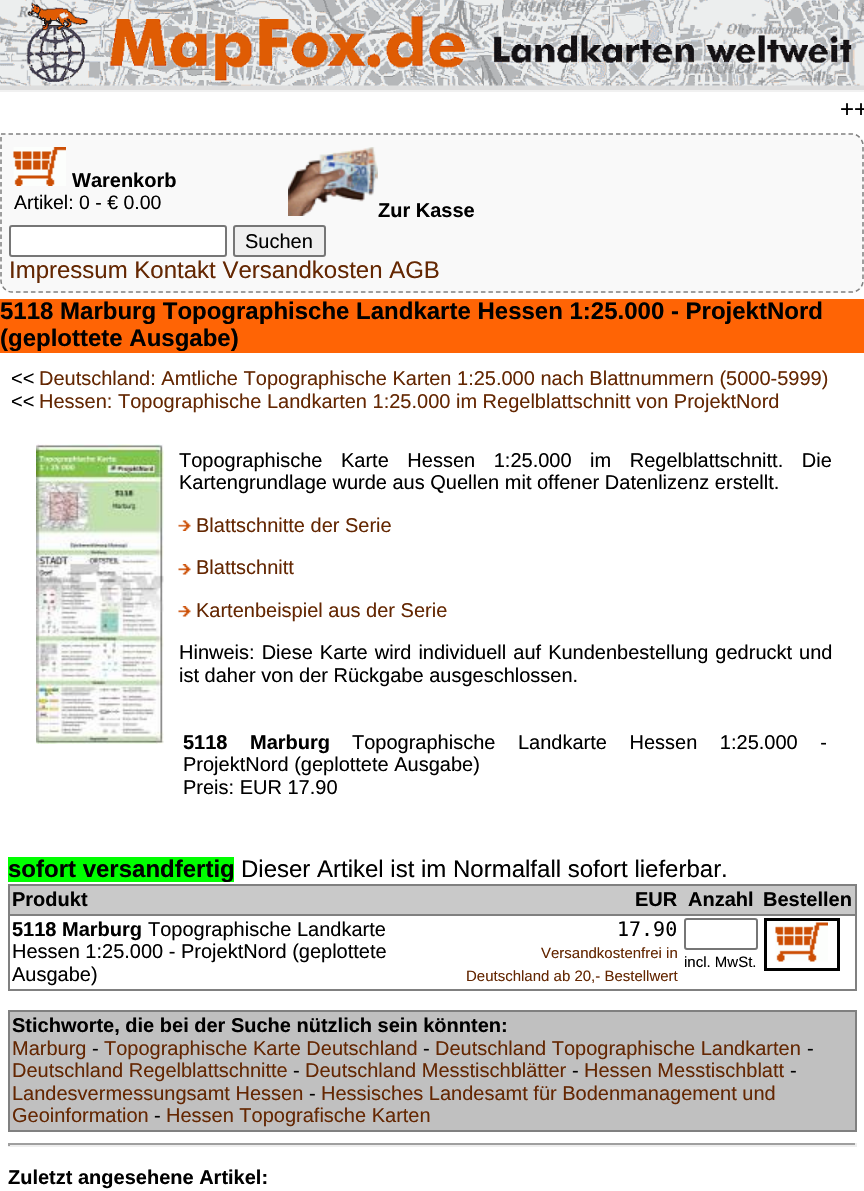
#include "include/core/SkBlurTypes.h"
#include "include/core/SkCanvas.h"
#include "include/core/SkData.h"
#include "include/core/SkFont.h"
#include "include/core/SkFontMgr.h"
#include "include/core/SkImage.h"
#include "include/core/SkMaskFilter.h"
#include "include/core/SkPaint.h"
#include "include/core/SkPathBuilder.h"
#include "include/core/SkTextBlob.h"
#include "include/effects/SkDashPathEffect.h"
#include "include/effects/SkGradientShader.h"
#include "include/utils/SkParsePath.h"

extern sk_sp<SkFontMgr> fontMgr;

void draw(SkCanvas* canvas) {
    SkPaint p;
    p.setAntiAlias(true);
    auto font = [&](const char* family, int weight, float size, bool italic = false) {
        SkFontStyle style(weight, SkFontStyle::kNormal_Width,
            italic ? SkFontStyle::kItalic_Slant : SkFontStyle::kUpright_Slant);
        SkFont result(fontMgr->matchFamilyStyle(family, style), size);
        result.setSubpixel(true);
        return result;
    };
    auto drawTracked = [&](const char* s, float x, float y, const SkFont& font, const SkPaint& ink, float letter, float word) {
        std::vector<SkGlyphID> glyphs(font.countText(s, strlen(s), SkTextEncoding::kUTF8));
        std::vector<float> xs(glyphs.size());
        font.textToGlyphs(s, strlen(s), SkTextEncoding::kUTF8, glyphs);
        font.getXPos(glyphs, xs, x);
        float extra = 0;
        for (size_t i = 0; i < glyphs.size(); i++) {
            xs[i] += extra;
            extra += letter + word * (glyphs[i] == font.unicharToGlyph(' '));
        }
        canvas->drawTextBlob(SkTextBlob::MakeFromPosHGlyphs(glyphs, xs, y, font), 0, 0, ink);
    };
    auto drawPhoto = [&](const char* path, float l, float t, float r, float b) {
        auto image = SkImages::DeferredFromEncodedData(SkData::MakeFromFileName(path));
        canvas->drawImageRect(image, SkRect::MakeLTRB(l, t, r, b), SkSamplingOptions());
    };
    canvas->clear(0xFFFFFFFF);
    p.setColor(0xFFF1F1F1);
    canvas->drawRect(SkRect::MakeLTRB(0, 90, 864, 92), p);
    p.setColor(0xFFDDDDDD);
    canvas->drawRect(SkRect::MakeLTRB(0, 85, 864, 90), p);
    drawPhoto("media/1.png", 0, 0, 864, 86);
    auto font1 = font("Liberation Sans", 400, 24);
    p.setColor(0xFF000000);
    canvas->drawString("++", 840, 117, font1, p);
    p.setColor(0xFFF9F9F9);
    canvas->drawPath(SkPathBuilder().moveTo(0, 134).lineTo(852, 134).cubicTo(858.5f, 134, 864, 139.5f, 864, 146).lineTo(864, 281).cubicTo(864, 287.5f, 858.5f, 293, 852, 293).lineTo(12, 293).cubicTo(5.5f, 293, 0, 287.5f, 0, 281).close().detach(), p);
    p.setStyle(SkPaint::kStroke_Style);
    p.setStrokeWidth(1.5f);
    p.setColor(0xFF808080);
    p.setPathEffect(SkDashPathEffect::Make({{4.5f, 3}}, 0));
    canvas->drawPath(SkPathBuilder().moveTo(1, 134).lineTo(852, 134).cubicTo(858, 134, 863, 139.5f, 863, 145.5f).lineTo(863, 280.5f).cubicTo(863, 286.5f, 858, 292, 852, 292).lineTo(12, 292).cubicTo(6, 292, 1, 286.5f, 1, 280.5f).close().detach(), p);
    p.setPathEffect(nullptr);
    drawPhoto("media/2.png", 13, 147, 66, 186);
    auto font2 = font("Liberation Sans", 700, 20);
    p.setStyle(SkPaint::kFill_Style);
    p.setColor(0xFF000000);
    canvas->drawString("Warenkorb", 72, 187, font2, p);
    auto font3 = font("Liberation Sans", 400, 19.5f);
    canvas->drawString("Artikel: 0 - € 0.00", 14, 209, font3, p);
    drawPhoto("media/3.png", 288, 147, 378, 216);
    canvas->drawString("Zur Kasse", 378, 217, font2, p);
    p.setColor(0xFFFFFFFF);
    canvas->drawRoundRect(SkRect::MakeLTRB(10, 226, 226, 256), 2, 2, p);
    p.setStyle(SkPaint::kStroke_Style);
    p.setStrokeWidth(2);
    p.setColor(0xFF767676);
    canvas->drawRoundRect(SkRect::MakeLTRB(10, 226, 226, 256), 2, 2, p);
    p.setStyle(SkPaint::kFill_Style);
    p.setColor(0xFFEFEFEF);
    canvas->drawRoundRect(SkRect::MakeLTRB(234, 226, 325, 256), 2, 2, p);
    p.setStyle(SkPaint::kStroke_Style);
    p.setColor(0xFF767676);
    canvas->drawRoundRect(SkRect::MakeLTRB(234, 226, 325, 256), 2, 2, p);
    auto font4 = font("Liberation Sans", 400, 20);
    p.setStyle(SkPaint::kFill_Style);
    p.setColor(0xFF000000);
    canvas->drawString("Suchen", 245, 248, font4, p);
    p.setColor(0xFF642702);
    canvas->drawString("Impressum Kontakt Versandkosten AGB", 9, 278, font1, p);
    p.setColor(0xFFFF6405);
    canvas->drawRect(SkRect::MakeLTRB(0, 299, 864, 353), p);
    auto font5 = font("Liberation Sans", 700, 24);
    p.setColor(0xFF000000);
    canvas->drawString("5118 Marburg Topographische Landkarte Hessen 1:25.000 - ProjektNord", 0, 319, font5, p);
    canvas->drawString("(geplottete Ausgabe)", 0, 346, font5, p);
    canvas->drawString("<<", 11, 385, font4, p);
    p.setColor(0xFF642702);
    canvas->drawString("Deutschland: Amtliche Topographische Karten 1:25.000 nach Blattnummern (5000-5999)", 39, 385, font4, p);
    p.setColor(0xFF000000);
    canvas->drawString("<<", 11, 408, font4, p);
    p.setColor(0xFF642702);
    canvas->drawString("Hessen: Topographische Landkarten 1:25.000 im Regelblattschnitt von ProjektNord", 39, 408, font4, p);
    drawPhoto("media/4.png", 36, 444, 164, 744);
    p.setColor(0xFF000000);
    drawTracked("Topographische Karte Hessen 1:25.000 im Regelblattschnitt. Die", 179, 467, font4, p, 0, 13);
    canvas->drawString("Kartengrundlage wurde aus Quellen mit offener Datenlizenz erstellt.", 179, 489, font4, p);
    drawPhoto("media/5.png", 178, 520, 191, 531);
    p.setColor(0xFF642702);
    canvas->drawString("Blattschnitte der Serie", 196, 532, font4, p);
    drawPhoto("media/6.png", 178, 564, 191, 575);
    canvas->drawString("Blattschnitt", 196, 574, font4, p);
    drawPhoto("media/6.png", 178, 606, 191, 617);
    canvas->drawString("Kartenbeispiel aus der Serie", 196, 617, font4, p);
    p.setColor(0xFF000000);
    drawTracked("Hinweis: Diese Karte wird individuell auf Kundenbestellung gedruckt und", 179, 659, font4, p, 0, 1.5f);
    canvas->drawString("ist daher von der Rückgabe ausgeschlossen.", 179, 682, font4, p);
    drawTracked("5118 Marburg", 183, 749, font2, p, 0, 17);
    drawTracked("Topographische Landkarte Hessen 1:25.000 -", 352, 749, font4, p, 0, 17);
    canvas->drawString("ProjektNord (geplottete Ausgabe)", 183, 771, font4, p);
    canvas->drawString("Preis: EUR 17.90", 183, 794, font4, p);
    p.setColor(0xFF00FF00);
    canvas->drawRect(SkRect::MakeLTRB(8, 857, 234, 882), p);
    p.setColor(0xFF000000);
    canvas->drawString("sofort versandfertig", 8, 877, font5, p);
    canvas->drawString("Dieser Artikel ist im Normalfall sofort lieferbar.", 241, 877, font1, p);
    {
        const struct { float l, t, r, b; SkColor color; } items[] = {
            {8, 884, 857, 886, 0xFF808080},
            {855, 884, 857, 990, 0xFF808080},
            {8, 989, 857, 991, 0xFF808080},
            {8, 884, 10, 990, 0xFF808080},
            {10, 886, 855, 914, 0xFFC9C9C9},
        };
        for (auto [l, t, r, b, color] : items) {
            p.setColor(color);
            canvas->drawRect(SkRect::MakeLTRB(l, t, r, b), p);
        }
    }
    p.setColor(0xFF000000);
    {
        const struct { const char* s; float x, y; } items[] = {
            {"Produkt", 12, 906},
            {"EUR", 635, 906},
            {"Anzahl", 688, 906},
            {"Bestellen", 763, 906},
        };
        for (auto [s, x, y] : items) {
            canvas->drawString(s, x, y, font2, p);
        }
    }
    p.setColor(0xFF808080);
    canvas->drawRect(SkRect::MakeLTRB(8, 914, 857, 916), p);
    p.setStyle(SkPaint::kStroke_Style);
    p.setStrokeWidth(3);
    p.setColor(0xFF000000);
    canvas->drawRect(SkRect::MakeLTRB(765.5f, 919.5f, 838.5f, 969.5f), p);
    drawPhoto("media/7.png", 775, 922, 828, 962);
    p.setStyle(SkPaint::kFill_Style);
    canvas->drawString("5118 Marburg", 12, 936, font2, p);
    {
        const struct { const char* s; float x, y; } items[] = {
            {"Topographische Landkarte", 148, 936},
            {"Hessen 1:25.000 - ProjektNord (geplottete", 12, 958},
            {"Ausgabe)", 12, 981},
        };
        for (auto [s, x, y] : items) {
            canvas->drawString(s, x, y, font4, p);
        }
    }
    auto font6 = font("DejaVu Sans Mono", 400, 20);
    canvas->drawString("17.90", 617, 936, font6, p);
    auto font7 = font("Liberation Sans", 400, 15);
    p.setColor(0xFF642702);
    canvas->drawString("Versandkostenfrei in", 541, 958, font7, p);
    canvas->drawString("Deutschland ab 20,- Bestellwert", 466, 981, font7, p);
    p.setStyle(SkPaint::kStroke_Style);
    p.setStrokeWidth(2);
    p.setColor(0xFF767676);
    canvas->drawRoundRect(SkRect::MakeLTRB(685, 919, 757, 949), 2, 2, p);
    p.setStyle(SkPaint::kFill_Style);
    p.setColor(0xFF000000);
    canvas->drawString("incl. MwSt.", 684, 967, font7, p);
    {
        const struct { float l, t, r, b; SkColor color; } items[] = {
            {8, 1010, 857, 1012, 0xFF808080},
            {855, 1010, 857, 1131, 0xFF808080},
            {8, 1130, 857, 1132, 0xFF808080},
            {8, 1010, 10, 1131, 0xFF808080},
            {10, 1012, 855, 1130, 0xFFC0C0C0},
        };
        for (auto [l, t, r, b, color] : items) {
            p.setColor(color);
            canvas->drawRect(SkRect::MakeLTRB(l, t, r, b), p);
        }
    }
    p.setColor(0xFF000000);
    canvas->drawString("Stichworte, die bei der Suche nützlich sein könnten:", 12, 1032, font2, p);
    p.setColor(0xFF642702);
    canvas->drawString("Marburg", 12, 1055, font4, p);
    p.setColor(0xFF000000);
    canvas->drawString("-", 92, 1055, font4, p);
    p.setColor(0xFF642702);
    canvas->drawString("Topographische Karte Deutschland", 104, 1055, font4, p);
    p.setColor(0xFF000000);
    canvas->drawString("-", 423, 1055, font4, p);
    p.setColor(0xFF642702);
    canvas->drawString("Deutschland Topographische Landkarten", 435, 1055, font4, p);
    p.setColor(0xFF000000);
    canvas->drawString("-", 807, 1055, font4, p);
    p.setColor(0xFF642702);
    canvas->drawString("Deutschland Regelblattschnitte", 12, 1077, font4, p);
    p.setColor(0xFF000000);
    canvas->drawString("-", 293, 1077, font4, p);
    p.setColor(0xFF642702);
    canvas->drawString("Deutschland Messtischblätter", 305, 1077, font4, p);
    p.setColor(0xFF000000);
    canvas->drawString("-", 572, 1077, font4, p);
    p.setColor(0xFF642702);
    canvas->drawString("Hessen Messtischblatt", 584, 1077, font4, p);
    p.setColor(0xFF000000);
    canvas->drawString("-", 790, 1077, font4, p);
    p.setColor(0xFF642702);
    canvas->drawString("Landesvermessungsamt Hessen", 12, 1100, font4, p);
    p.setColor(0xFF000000);
    canvas->drawString("-", 309, 1100, font4, p);
    p.setColor(0xFF642702);
    canvas->drawString("Hessisches Landesamt für Bodenmanagement und", 321, 1100, font4, p);
    canvas->drawString("Geoinformation", 12, 1122, font4, p);
    p.setColor(0xFF000000);
    canvas->drawString("-", 154, 1122, font4, p);
    p.setColor(0xFF642702);
    canvas->drawString("Hessen Topografische Karten", 166, 1122, font4, p);
    {
        const struct { float l, t, r, b; SkColor color; } items[] = {
            {8, 1143, 857, 1145, 0xFF9F9F9F},
            {855, 1143, 857, 1146, 0xFFEEEEEE},
            {8, 1145, 857, 1147, 0xFFEEEEEE},
            {8, 1143, 10, 1146, 0xFF9F9F9F},
        };
        for (auto [l, t, r, b, color] : items) {
            p.setColor(color);
            canvas->drawRect(SkRect::MakeLTRB(l, t, r, b), p);
        }
    }
    p.setColor(0xFF000000);
    canvas->drawString("Zuletzt angesehene Artikel:", 8, 1184, font2, p);
}
